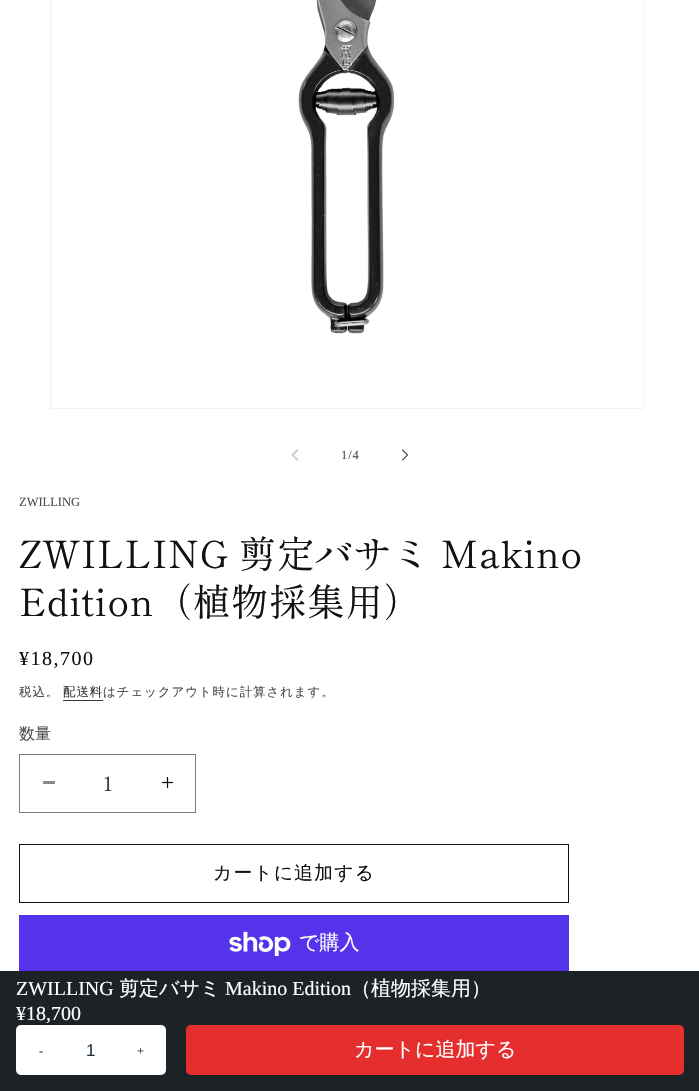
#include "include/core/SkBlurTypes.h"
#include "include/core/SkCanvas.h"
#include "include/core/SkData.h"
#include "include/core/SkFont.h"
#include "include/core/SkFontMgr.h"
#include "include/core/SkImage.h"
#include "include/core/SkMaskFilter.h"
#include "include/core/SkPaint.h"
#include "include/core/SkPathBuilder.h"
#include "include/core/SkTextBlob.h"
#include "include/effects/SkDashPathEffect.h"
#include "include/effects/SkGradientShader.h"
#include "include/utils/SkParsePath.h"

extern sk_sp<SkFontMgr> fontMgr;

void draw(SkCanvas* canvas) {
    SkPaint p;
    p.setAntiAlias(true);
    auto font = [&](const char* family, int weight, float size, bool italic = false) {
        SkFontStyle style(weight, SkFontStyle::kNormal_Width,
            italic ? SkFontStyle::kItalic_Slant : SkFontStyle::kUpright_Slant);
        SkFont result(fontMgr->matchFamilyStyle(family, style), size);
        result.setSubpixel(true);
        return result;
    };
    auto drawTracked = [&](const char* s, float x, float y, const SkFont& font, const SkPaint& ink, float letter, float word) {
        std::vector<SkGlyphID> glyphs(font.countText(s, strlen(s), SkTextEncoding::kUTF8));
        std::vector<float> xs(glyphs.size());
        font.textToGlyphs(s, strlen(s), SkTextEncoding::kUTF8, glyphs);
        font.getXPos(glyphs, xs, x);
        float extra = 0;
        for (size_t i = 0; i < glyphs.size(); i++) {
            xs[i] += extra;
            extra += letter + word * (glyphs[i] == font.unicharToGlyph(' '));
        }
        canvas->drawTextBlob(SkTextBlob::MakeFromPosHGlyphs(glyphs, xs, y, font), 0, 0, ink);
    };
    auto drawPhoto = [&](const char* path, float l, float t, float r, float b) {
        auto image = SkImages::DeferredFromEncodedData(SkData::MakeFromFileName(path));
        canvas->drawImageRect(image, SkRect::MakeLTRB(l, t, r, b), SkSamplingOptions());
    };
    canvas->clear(0xFFFFFFFF);
    p.setStyle(SkPaint::kStroke_Style);
    p.setStrokeWidth(1);
    p.setColor(0xFFF3F3F3);
    canvas->drawRect(SkRect::MakeLTRB(50.5f, -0.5f, 643.5f, 408.5f), p);
    drawPhoto("media/1.png", 298, 0, 395, 334);
    drawPhoto("media/2.png", 292, 449, 298, 461);
    auto font1 = font("Liberation Serif", 400, 12.5f);
    p.setStyle(SkPaint::kFill_Style);
    p.setColor(0xFF4D4D4D);
    drawTracked("1/4", 341, 459, font1, p, 0.9f, 0);
    drawPhoto("media/3.png", 402, 449, 408, 461);
    canvas->drawString("ZWILLING", 19, 506, font1, p);
    auto font2 = font("Shippori Mincho", 400, 37.5f);
    p.setColor(0xFF121212);
    drawTracked("ZWILLING 剪定バサミ Makino", 19, 568, font2, p, 0.75f, 0);
    drawTracked("Edition（植物採集用）", 19, 616, font2, p, 0.75f, 0);
    auto font3 = font("Liberation Serif", 400, 20);
    drawTracked("¥18,700", 19, 665, font3, p, 1.5f, 0);
    auto font4 = font("WenQuanYi Zen Hei", 500, 12.5f);
    p.setColor(0xFF4D4D4D);
    drawTracked("税込。", 19, 696, font4, p, 0.9f, 0);
    p.setColor(0xFF363636);
    drawTracked("配送料", 63, 696, font4, p, 0.9f, 0);
    canvas->drawRect(SkRect::MakeLTRB(63, 700, 103, 701), p);
    p.setColor(0xFF4D4D4D);
    drawTracked("はチェックアウト時に計算されます。", 103, 696, font4, p, 0.9f, 0);
    auto font5 = font("WenQuanYi Zen Hei", 500, 16);
    canvas->drawString("数量", 19, 739, font5, p);
    p.setColor(0xFF898989);
    canvas->drawRect(SkRect::MakeLTRB(43, 781, 55, 784), p);
    drawPhoto("media/4.png", 161, 776, 174, 789);
    p.setStyle(SkPaint::kStroke_Style);
    p.setColor(0xFF7D7D7D);
    canvas->drawRect(SkRect::MakeLTRB(19.5f, 754.5f, 195.5f, 812.5f), p);
    auto font6 = font("Shippori Mincho", 400, 20);
    p.setStyle(SkPaint::kFill_Style);
    p.setColor(0xFF363636);
    canvas->drawString("1", 103, 791, font6, p);
    p.setStyle(SkPaint::kStroke_Style);
    p.setColor(0xFF121212);
    canvas->drawRect(SkRect::MakeLTRB(19.5f, 844.5f, 568.5f, 902.5f), p);
    auto font7 = font("WenQuanYi Zen Hei", 500, 18.75f);
    p.setStyle(SkPaint::kFill_Style);
    drawTracked("カートに追加する", 213, 879, font7, p, 1.25f, 0);
    p.setColor(0xFF5433EB);
    canvas->drawRect(SkRect::MakeLTRB(19, 915, 569, 971), p);
    drawPhoto("media/5.png", 229, 931, 291, 956);
    auto font8 = font("WenQuanYi Zen Hei", 500, 20);
    p.setColor(0xFFFFFFFF);
    canvas->drawString("で購入", 299, 949, font8, p);
    p.setColor(0xFF1D2227);
    canvas->drawRect(SkRect::MakeLTRB(0, 971, 699, 1091), p);
    p.setColor(0xFFFFFFFF);
    canvas->drawString("ZWILLING", 16, 995, font3, p);
    canvas->drawString("剪定バサミ", 119, 995, font8, p);
    canvas->drawString("Makino Edition", 225, 995, font3, p);
    canvas->drawString("（植物採集用）", 351, 995, font8, p);
    canvas->drawString("¥18,700", 16, 1020, font3, p);
    canvas->drawRoundRect(SkRect::MakeLTRB(16, 1025, 166, 1075), 5, 5, p);
    p.setColor(0xFF2D353C);
    canvas->drawString("-", 39, 1055, font1, p);
    auto font9 = font("Liberation Sans", 400, 17);
    p.setColor(0xFF263644);
    canvas->drawString("1", 86, 1056, font9, p);
    canvas->drawString("+", 137, 1055, font1, p);
    p.setColor(0xFFE52F2F);
    canvas->drawRoundRect(SkRect::MakeLTRB(186, 1025, 684, 1075), 5, 5, p);
    p.setColor(0xFFFFFFFF);
    canvas->drawString("カートに追加する", 354, 1056, font8, p);
}
